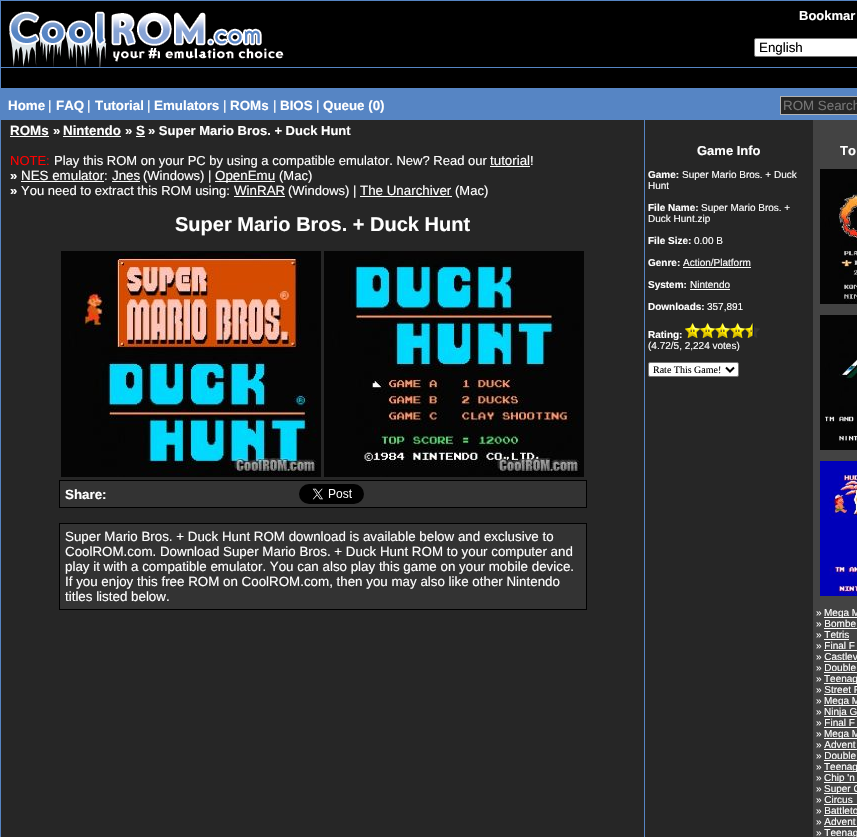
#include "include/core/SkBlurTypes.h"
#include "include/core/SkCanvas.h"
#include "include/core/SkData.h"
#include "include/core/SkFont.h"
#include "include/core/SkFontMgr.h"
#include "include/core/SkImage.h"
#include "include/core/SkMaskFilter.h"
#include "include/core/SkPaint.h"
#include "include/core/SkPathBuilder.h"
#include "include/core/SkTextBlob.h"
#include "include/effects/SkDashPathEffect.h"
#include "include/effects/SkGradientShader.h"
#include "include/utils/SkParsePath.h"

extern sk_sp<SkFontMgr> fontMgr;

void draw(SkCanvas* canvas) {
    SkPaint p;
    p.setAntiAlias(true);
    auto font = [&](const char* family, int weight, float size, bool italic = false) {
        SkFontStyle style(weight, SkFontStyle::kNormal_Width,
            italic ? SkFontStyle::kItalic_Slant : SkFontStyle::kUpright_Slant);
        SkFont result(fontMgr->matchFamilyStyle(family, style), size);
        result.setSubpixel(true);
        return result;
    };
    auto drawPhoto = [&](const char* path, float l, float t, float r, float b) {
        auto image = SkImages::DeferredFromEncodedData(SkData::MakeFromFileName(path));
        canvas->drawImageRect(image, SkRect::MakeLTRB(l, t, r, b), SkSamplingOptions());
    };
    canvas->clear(0xFF5685C4);
    p.setColor(0xFF000000);
    canvas->drawRect(SkRect::MakeLTRB(1, 1, 857, 67), p);
    drawPhoto("media/1.png", 9, 11, 284, 67);
    auto font1 = font("Liberation Sans", 700, 13);
    p.setColor(0xFFFFFFFF);
    canvas->drawString("Bookmar", 799, 20, font1, p);
    canvas->drawRoundRect(SkRect::MakeLTRB(754.5f, 38.5f, 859.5f, 56.5f), 1.5f, 1.5f, p);
    p.setStyle(SkPaint::kStroke_Style);
    p.setStrokeWidth(1);
    p.setColor(0xFF767676);
    canvas->drawRoundRect(SkRect::MakeLTRB(754.5f, 38.5f, 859.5f, 56.5f), 1.5f, 1.5f, p);
    auto font2 = font("Liberation Sans", 400, 13.35f);
    p.setStyle(SkPaint::kFill_Style);
    p.setColor(0xFF000000);
    canvas->drawString("English", 759, 52, font2, p);
    canvas->drawRect(SkRect::MakeLTRB(1, 68, 857, 88), p);
    auto font3 = font("Liberation Sans", 700, 13.35f);
    p.setColor(0xFFFFFFFF);
    canvas->drawString("Home", 8, 110, font3, p);
    canvas->drawString("|", 48, 110, font2, p);
    canvas->drawString("FAQ", 56, 110, font3, p);
    canvas->drawString("|", 87, 110, font2, p);
    canvas->drawString("Tutorial", 95, 110, font3, p);
    canvas->drawString("|", 147, 110, font2, p);
    canvas->drawString("Emulators", 154, 110, font3, p);
    canvas->drawString("|", 223, 110, font2, p);
    canvas->drawString("ROMs", 230, 110, font3, p);
    canvas->drawString("|", 273, 110, font2, p);
    canvas->drawString("BIOS", 280, 110, font3, p);
    canvas->drawString("|", 316, 110, font2, p);
    canvas->drawString("Queue (0)", 323, 110, font3, p);
    p.setColor(0xFF262626);
    canvas->drawRect(SkRect::MakeLTRB(780.5f, 96.5f, 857.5f, 114.5f), p);
    p.setStyle(SkPaint::kStroke_Style);
    p.setColor(0xFFB2B2B2);
    canvas->drawRect(SkRect::MakeLTRB(780.5f, 96.5f, 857.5f, 114.5f), p);
    p.setStyle(SkPaint::kFill_Style);
    p.setColor(0xFF757575);
    canvas->drawString("ROM Search", 783, 110, font2, p);
    p.setColor(0xFF262626);
    canvas->drawRect(SkRect::MakeLTRB(1, 120, 644, 837), p);
    p.setColor(0xFFFFFFFF);
    canvas->drawString("ROMs", 10, 135, font3, p);
    canvas->drawRect(SkRect::MakeLTRB(10, 136, 49, 137), p);
    canvas->drawString("»", 53, 135, font1, p);
    canvas->drawRect(SkRect::MakeLTRB(63, 136, 121, 137), p);
    canvas->drawString("Nintendo", 63, 135, font3, p);
    canvas->drawString("»", 125, 135, font1, p);
    canvas->drawString("S", 136, 135, font3, p);
    canvas->drawRect(SkRect::MakeLTRB(136, 136, 145, 137), p);
    canvas->drawString("» Super Mario Bros. + Duck Hunt", 148, 135, font1, p);
    auto font4 = font("Liberation Sans", 400, 13);
    p.setColor(0xFFFF0000);
    canvas->drawString("NOTE:", 10, 165, font4, p);
    p.setColor(0xFFFFFFFF);
    canvas->drawString("Play this ROM on your PC by using a compatible emulator. New? Read our", 54, 165, font4, p);
    canvas->drawString("tutorial", 490, 165, font2, p);
    canvas->drawRect(SkRect::MakeLTRB(490, 166, 530, 167), p);
    canvas->drawString("!", 530, 165, font4, p);
    canvas->drawString("»", 10, 180, font1, p);
    canvas->drawString("NES emulator", 21, 180, font2, p);
    canvas->drawRect(SkRect::MakeLTRB(21, 181, 104, 182), p);
    canvas->drawString(":", 104, 180, font4, p);
    canvas->drawString("Jnes", 112, 180, font2, p);
    canvas->drawRect(SkRect::MakeLTRB(112, 181, 140, 182), p);
    canvas->drawString("(Windows) |", 143, 180, font4, p);
    canvas->drawRect(SkRect::MakeLTRB(215, 181, 275, 182), p);
    canvas->drawString("OpenEmu", 215, 180, font2, p);
    canvas->drawString("(Mac)", 279, 180, font4, p);
    canvas->drawString("»", 10, 195, font1, p);
    canvas->drawString("You need to extract this ROM using:", 21, 195, font4, p);
    canvas->drawString("WinRAR", 234, 195, font2, p);
    canvas->drawRect(SkRect::MakeLTRB(234, 196, 285, 197), p);
    canvas->drawString("(Windows) |", 288, 195, font4, p);
    canvas->drawString("The Unarchiver", 360, 195, font2, p);
    canvas->drawRect(SkRect::MakeLTRB(360, 196, 452, 197), p);
    canvas->drawString("(Mac)", 455, 195, font4, p);
    auto font5 = font("Liberation Sans", 700, 20);
    canvas->drawString("Super Mario Bros. + Duck Hunt", 175, 231, font5, p);
    drawPhoto("media/2.png", 61, 251, 321, 477);
    drawPhoto("media/3.png", 324, 251, 584, 477);
    p.setColor(0xFF333333);
    canvas->drawRect(SkRect::MakeLTRB(59.5f, 480.5f, 586.5f, 507.5f), p);
    p.setStyle(SkPaint::kStroke_Style);
    p.setColor(0xFF000000);
    canvas->drawRect(SkRect::MakeLTRB(59.5f, 480.5f, 586.5f, 507.5f), p);
    p.setStyle(SkPaint::kFill_Style);
    p.setColor(0xFFFFFFFF);
    canvas->drawString("Share:", 65, 499, font3, p);
    drawPhoto("media/4.png", 299, 484, 364, 504);
    p.setColor(0xFF333333);
    canvas->drawRect(SkRect::MakeLTRB(59.5f, 523.5f, 586.5f, 609.5f), p);
    p.setStyle(SkPaint::kStroke_Style);
    p.setColor(0xFF000000);
    canvas->drawRect(SkRect::MakeLTRB(59.5f, 523.5f, 586.5f, 609.5f), p);
    p.setStyle(SkPaint::kFill_Style);
    p.setColor(0xFFFFFFFF);
    {
        const struct { const char* s; float x, y; } items[] = {
            {"Super Mario Bros. + Duck Hunt ROM download is available below and exclusive to", 65, 541},
            {"CoolROM.com. Download Super Mario Bros. + Duck Hunt ROM to your computer and", 65, 556},
            {"play it with a compatible emulator. You can also play this game on your mobile device.", 65, 571},
            {"If you enjoy this free ROM on CoolROM.com, then you may also like other Nintendo", 65, 586},
            {"titles listed below.", 65, 601},
        };
        for (auto [s, x, y] : items) {
            canvas->drawString(s, x, y, font2, p);
        }
    }
    p.setColor(0xFF262626);
    canvas->drawRect(SkRect::MakeLTRB(645, 120, 813, 837), p);
    p.setColor(0xFFFFFFFF);
    canvas->drawString("Game Info", 697, 155, font1, p);
    auto font6 = font("Liberation Sans", 700, 10);
    canvas->drawString("Game:", 648, 178, font6, p);
    auto font7 = font("Liberation Sans", 400, 10);
    canvas->drawString("Super Mario Bros. + Duck", 682, 178, font7, p);
    canvas->drawString("Hunt", 648, 189, font7, p);
    canvas->drawString("File Name:", 648, 211, font6, p);
    canvas->drawString("Super Mario Bros. +", 701, 211, font7, p);
    canvas->drawString("Duck Hunt.zip", 648, 222, font7, p);
    canvas->drawString("File Size:", 648, 244, font6, p);
    canvas->drawString("0.00 B", 694, 244, font7, p);
    canvas->drawString("Genre:", 648, 266, font6, p);
    canvas->drawString("Action/Platform", 683, 266, font7, p);
    canvas->drawRect(SkRect::MakeLTRB(683, 267, 751, 268), p);
    canvas->drawString("System:", 648, 288, font6, p);
    canvas->drawString("Nintendo", 690, 288, font7, p);
    canvas->drawRect(SkRect::MakeLTRB(690, 289, 730, 290), p);
    canvas->drawString("Downloads:", 648, 310, font6, p);
    canvas->drawString("357,891", 707, 310, font7, p);
    canvas->drawString("Rating:", 648, 338, font6, p);
    drawPhoto("media/5.png", 685, 323, 700, 338);
    drawPhoto("media/5.png", 700, 323, 715, 338);
    drawPhoto("media/5.png", 715, 323, 730, 338);
    drawPhoto("media/5.png", 730, 323, 745, 338);
    drawPhoto("media/6.png", 745, 323, 760, 338);
    canvas->drawString("(4.72/5, 2,224 votes)", 648, 349, font7, p);
    canvas->drawRoundRect(SkRect::MakeLTRB(648.5f, 362.5f, 738.5f, 376.5f), 1.5f, 1.5f, p);
    p.setStyle(SkPaint::kStroke_Style);
    p.setColor(0xFF767676);
    canvas->drawRoundRect(SkRect::MakeLTRB(648.5f, 362.5f, 738.5f, 376.5f), 1.5f, 1.5f, p);
    p.setStrokeWidth(2);
    p.setColor(0xFF000000);
    canvas->drawPath(SkPathBuilder().moveTo(726, 367.5f).lineTo(730, 371.5f).lineTo(734, 367.5f).detach(), p);
    auto font8 = font("Liberation Serif", 400, 10);
    p.setStyle(SkPaint::kFill_Style);
    canvas->drawString("Rate This Game!", 653, 373, font8, p);
    p.setColor(0xFF434343);
    canvas->drawRect(SkRect::MakeLTRB(813, 120, 857, 837), p);
    p.setColor(0xFFFFFFFF);
    canvas->drawString("To", 840, 155, font1, p);
    drawPhoto("media/7.png", 820, 169, 857, 304);
    drawPhoto("media/8.png", 820, 315, 857, 450);
    drawPhoto("media/9.png", 820, 461, 857, 596);
    canvas->drawString("»", 816, 616, font7, p);
    canvas->drawRect(SkRect::MakeLTRB(824, 617, 857, 618), p);
    canvas->drawString("Mega M", 824, 616, font7, p);
    canvas->drawString("» Bombe", 816, 627, font7, p);
    canvas->drawRect(SkRect::MakeLTRB(824, 628, 857, 629), p);
    canvas->drawString("» Tetris", 816, 638, font7, p);
    canvas->drawRect(SkRect::MakeLTRB(824, 639, 849, 640), p);
    canvas->drawString("» Final F", 816, 649, font7, p);
    canvas->drawRect(SkRect::MakeLTRB(824, 650, 857, 651), p);
    canvas->drawString("» Castlev", 816, 660, font7, p);
    canvas->drawRect(SkRect::MakeLTRB(824, 661, 857, 662), p);
    canvas->drawString("» Double", 816, 671, font7, p);
    canvas->drawRect(SkRect::MakeLTRB(824, 672, 857, 673), p);
    canvas->drawString("»", 816, 682, font7, p);
    canvas->drawRect(SkRect::MakeLTRB(824, 683, 857, 684), p);
    canvas->drawString("Teenag", 824, 682, font7, p);
    canvas->drawString("» Street F", 816, 693, font7, p);
    canvas->drawRect(SkRect::MakeLTRB(824, 694, 857, 695), p);
    canvas->drawString("»", 816, 704, font7, p);
    canvas->drawRect(SkRect::MakeLTRB(824, 705, 857, 706), p);
    canvas->drawString("Mega M", 824, 704, font7, p);
    canvas->drawString("»", 816, 715, font7, p);
    canvas->drawRect(SkRect::MakeLTRB(824, 716, 857, 717), p);
    canvas->drawString("Ninja G", 824, 715, font7, p);
    canvas->drawString("» Final F", 816, 726, font7, p);
    canvas->drawRect(SkRect::MakeLTRB(824, 727, 857, 728), p);
    canvas->drawString("»", 816, 737, font7, p);
    canvas->drawRect(SkRect::MakeLTRB(824, 738, 857, 739), p);
    canvas->drawString("Mega M", 824, 737, font7, p);
    canvas->drawString("» Advent", 816, 748, font7, p);
    canvas->drawRect(SkRect::MakeLTRB(824, 749, 857, 750), p);
    canvas->drawString("» Double", 816, 759, font7, p);
    canvas->drawRect(SkRect::MakeLTRB(824, 760, 857, 761), p);
    canvas->drawString("»", 816, 770, font7, p);
    canvas->drawRect(SkRect::MakeLTRB(824, 771, 857, 772), p);
    canvas->drawString("Teenag", 824, 770, font7, p);
    canvas->drawString("»", 816, 781, font7, p);
    canvas->drawRect(SkRect::MakeLTRB(824, 782, 857, 783), p);
    canvas->drawString("Chip 'n", 824, 781, font7, p);
    canvas->drawString("»", 816, 792, font7, p);
    canvas->drawRect(SkRect::MakeLTRB(824, 793, 857, 794), p);
    canvas->drawString("Super C", 824, 792, font7, p);
    canvas->drawString("» Circus", 816, 803, font7, p);
    canvas->drawRect(SkRect::MakeLTRB(824, 804, 857, 805), p);
    canvas->drawString("» Battleto", 816, 814, font7, p);
    canvas->drawRect(SkRect::MakeLTRB(824, 815, 857, 816), p);
    canvas->drawString("» Advent", 816, 825, font7, p);
    canvas->drawRect(SkRect::MakeLTRB(824, 826, 857, 827), p);
    canvas->drawString("» Teenag", 816, 836, font7, p);
}
